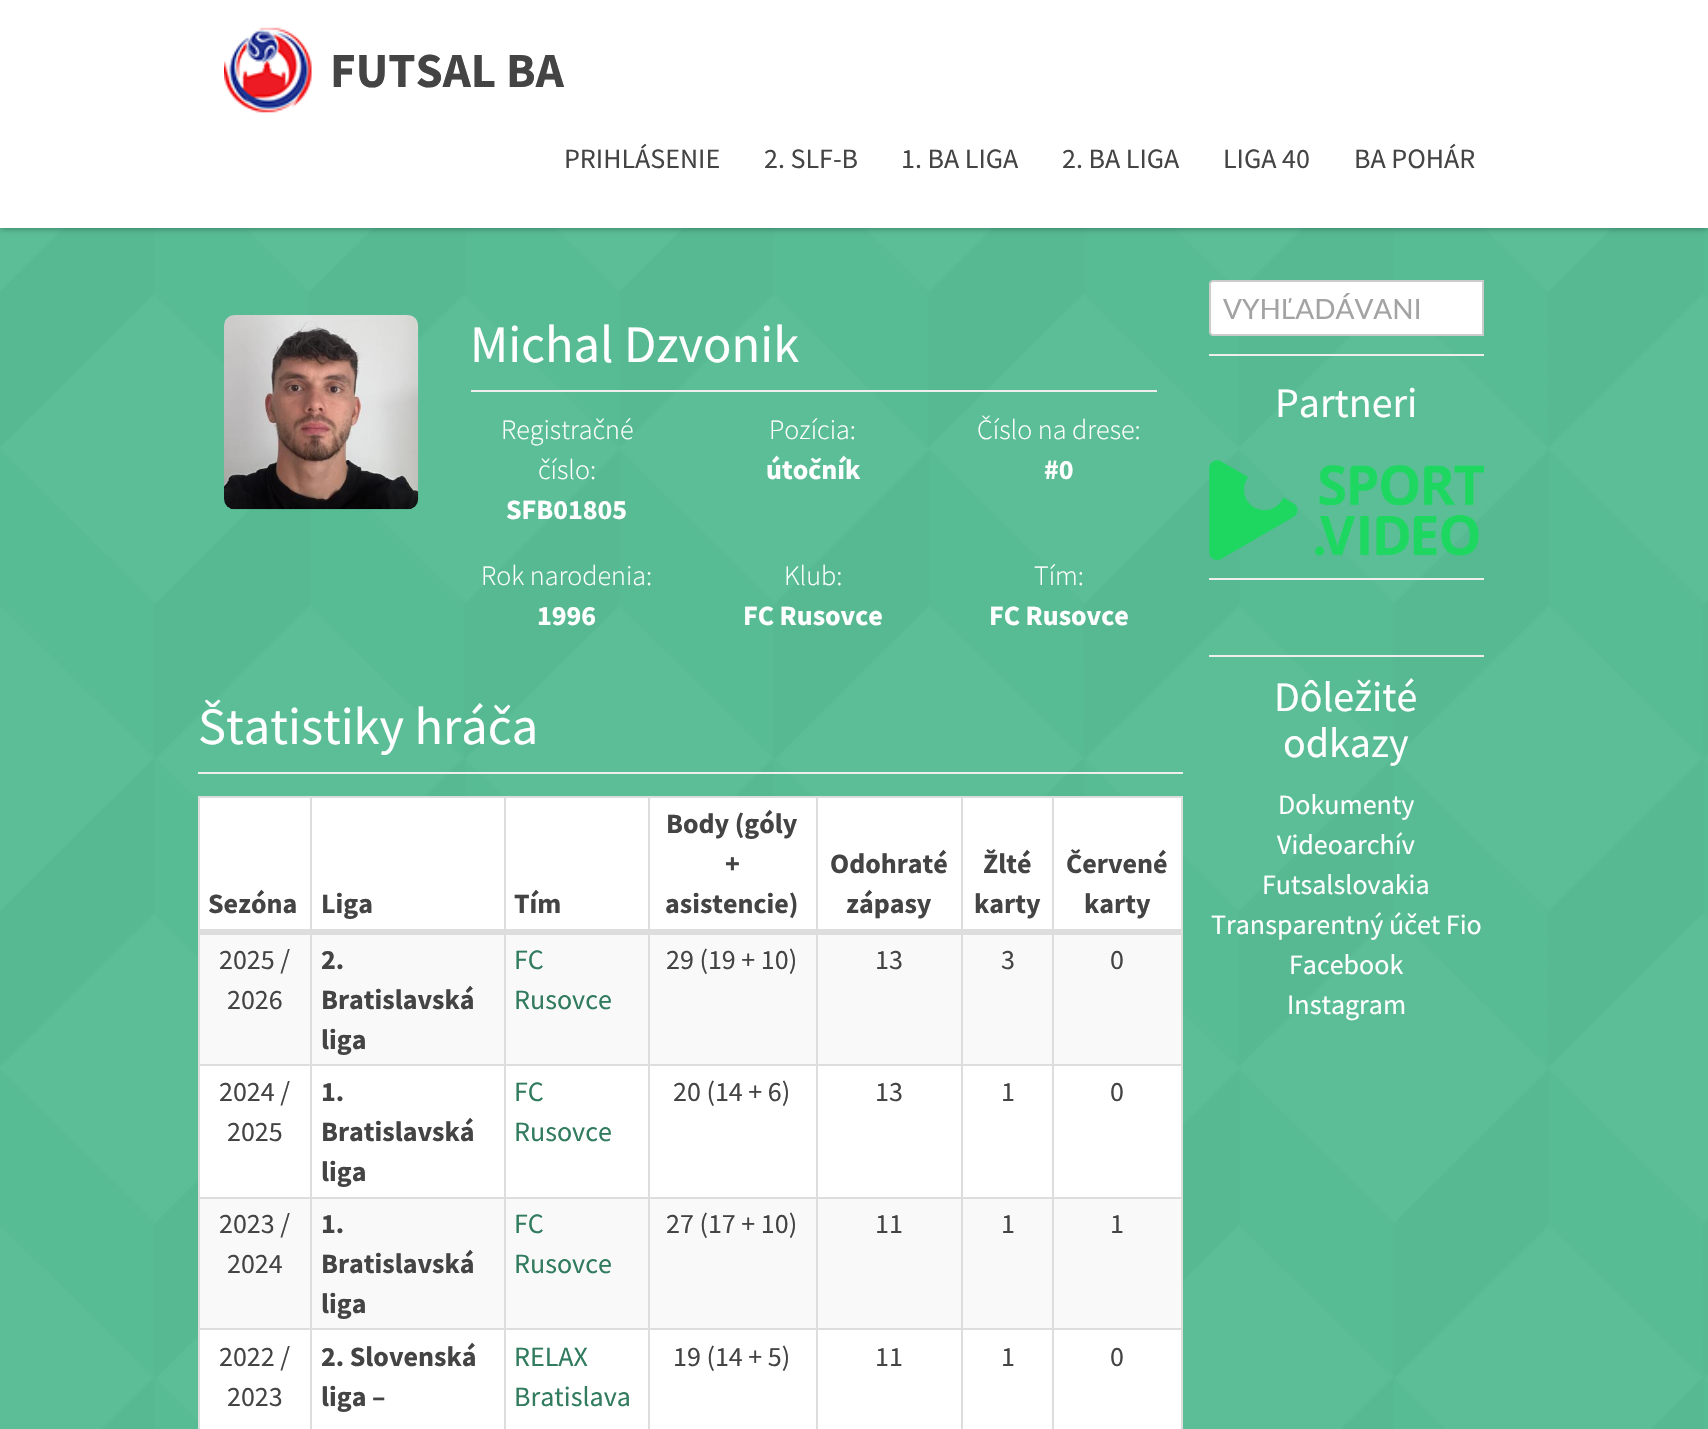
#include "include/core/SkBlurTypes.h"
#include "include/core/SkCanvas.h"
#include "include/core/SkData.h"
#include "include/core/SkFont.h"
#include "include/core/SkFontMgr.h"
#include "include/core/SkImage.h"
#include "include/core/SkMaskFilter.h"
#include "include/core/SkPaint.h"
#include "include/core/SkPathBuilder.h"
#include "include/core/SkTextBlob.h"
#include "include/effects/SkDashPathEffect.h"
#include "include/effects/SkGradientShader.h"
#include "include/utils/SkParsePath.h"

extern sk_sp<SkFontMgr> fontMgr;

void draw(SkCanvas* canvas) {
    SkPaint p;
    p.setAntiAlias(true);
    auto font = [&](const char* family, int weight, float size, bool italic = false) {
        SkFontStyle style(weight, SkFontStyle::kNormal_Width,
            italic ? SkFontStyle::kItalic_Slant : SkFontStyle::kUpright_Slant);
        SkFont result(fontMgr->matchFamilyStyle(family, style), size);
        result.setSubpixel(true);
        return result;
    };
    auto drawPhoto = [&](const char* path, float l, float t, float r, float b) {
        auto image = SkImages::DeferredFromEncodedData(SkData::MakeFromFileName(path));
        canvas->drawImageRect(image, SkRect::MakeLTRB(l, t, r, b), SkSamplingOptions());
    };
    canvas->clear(0xFF56BC94);
    drawPhoto("media/2.png", 0, 228, 1708, 1429);
    p.setColor(0x66000000);
    p.setMaskFilter(SkMaskFilter::MakeBlur(kNormal_SkBlurStyle, 3.5f));
    canvas->drawRect(SkRect::MakeLTRB(0, 0, 1708, 228), p);
    p.setMaskFilter(nullptr);
    p.setColor(0xFFFFFFFF);
    canvas->drawRect(SkRect::MakeLTRB(0, 0, 1708, 228), p);
    drawPhoto("media/1.png", 224, 27, 312, 113);
    auto font1 = font("Source Sans Pro", 700, 49);
    p.setColor(0xFF444444);
    canvas->drawString("FUTSAL BA", 330, 87, font1, p);
    auto font2 = font("Source Sans Pro", 400, 28);
    {
        const struct { const char* s; float x, y; } items[] = {
            {"PRIHLÁSENIE", 564, 168},
            {"2. SLF-B", 764, 168},
            {"1. BA LIGA", 901, 168},
            {"2. BA LIGA", 1062, 168},
            {"LIGA 40", 1223, 168},
            {"BA POHÁR", 1354, 168},
        };
        for (auto [s, x, y] : items) {
            canvas->drawString(s, x, y, font2, p);
        }
    }
    drawPhoto("media/3.png", 224, 315, 419, 510);
    auto font3 = font("Source Sans Pro", 400, 52.5f);
    p.setColor(0xFFFFFFFF);
    canvas->drawString("Michal Dzvonik", 470, 362, font3, p);
    p.setColor(0xFFEEEEEE);
    canvas->drawRect(SkRect::MakeLTRB(471, 390, 1157, 392), p);
    auto font4 = font("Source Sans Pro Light", 300, 28);
    p.setColor(0xFFFFFFFF);
    canvas->drawString("Registračné", 501, 439, font4, p);
    canvas->drawString("číslo:", 538, 479, font4, p);
    auto font5 = font("Source Sans Pro", 700, 28);
    canvas->drawString("SFB01805", 506, 519, font5, p);
    canvas->drawString("Pozícia:", 769, 439, font4, p);
    canvas->drawString("útočník", 766, 479, font5, p);
    canvas->drawString("Číslo na drese:", 977, 439, font4, p);
    canvas->drawString("#0", 1044, 479, font5, p);
    canvas->drawString("Rok narodenia:", 481, 585, font4, p);
    canvas->drawString("1996", 537, 625, font5, p);
    canvas->drawString("Klub:", 784, 585, font4, p);
    canvas->drawString("FC Rusovce", 743, 625, font5, p);
    canvas->drawString("Tím:", 1034, 585, font4, p);
    canvas->drawString("FC Rusovce", 989, 625, font5, p);
    canvas->drawString("Štatistiky hráča", 198, 744, font3, p);
    p.setColor(0xFFEEEEEE);
    canvas->drawRect(SkRect::MakeLTRB(198, 772, 1183, 774), p);
    p.setColor(0xFFFFFFFF);
    canvas->drawRect(SkRect::MakeLTRB(199, 797, 1182, 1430), p);
    p.setStyle(SkPaint::kStroke_Style);
    p.setStrokeWidth(2);
    p.setColor(0xFFDDDDDD);
    canvas->drawRect(SkRect::MakeLTRB(199, 797, 1182, 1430), p);
    p.setStyle(SkPaint::kFill_Style);
    canvas->drawRect(SkRect::MakeLTRB(310, 798, 312, 933), p);
    canvas->drawRect(SkRect::MakeLTRB(200, 929, 312, 935), p);
    p.setColor(0xFF444444);
    canvas->drawString("Sezóna", 208, 913, font5, p);
    p.setColor(0xFFDDDDDD);
    canvas->drawRect(SkRect::MakeLTRB(504, 798, 506, 933), p);
    canvas->drawRect(SkRect::MakeLTRB(312, 929, 506, 935), p);
    p.setColor(0xFF444444);
    canvas->drawString("Liga", 321, 913, font5, p);
    p.setColor(0xFFDDDDDD);
    canvas->drawRect(SkRect::MakeLTRB(648, 798, 650, 933), p);
    canvas->drawRect(SkRect::MakeLTRB(506, 929, 649, 935), p);
    p.setColor(0xFF444444);
    canvas->drawString("Tím", 514, 913, font5, p);
    p.setColor(0xFFDDDDDD);
    canvas->drawRect(SkRect::MakeLTRB(816, 798, 818, 933), p);
    canvas->drawRect(SkRect::MakeLTRB(649, 929, 817, 933), p);
    p.setColor(0xFF444444);
    {
        const struct { const char* s; float x, y; } items[] = {
            {"Body (góly", 666, 833},
            {"+", 725, 873},
            {"asistencie)", 665, 913},
        };
        for (auto [s, x, y] : items) {
            canvas->drawString(s, x, y, font5, p);
        }
    }
    p.setColor(0xFFDDDDDD);
    canvas->drawRect(SkRect::MakeLTRB(961, 798, 963, 933), p);
    canvas->drawRect(SkRect::MakeLTRB(817, 929, 963, 933), p);
    p.setColor(0xFF444444);
    canvas->drawString("Odohraté", 830, 873, font5, p);
    canvas->drawString("zápasy", 846, 913, font5, p);
    p.setColor(0xFFDDDDDD);
    canvas->drawRect(SkRect::MakeLTRB(1052, 798, 1054, 933), p);
    canvas->drawRect(SkRect::MakeLTRB(963, 929, 1181, 933), p);
    p.setColor(0xFF444444);
    {
        const struct { const char* s; float x, y; } items[] = {
            {"Žlté", 983, 873},
            {"karty", 974, 913},
            {"Červené", 1066, 873},
            {"karty", 1084, 913},
        };
        for (auto [s, x, y] : items) {
            canvas->drawString(s, x, y, font5, p);
        }
    }
    p.setColor(0xFFF9F9F9);
    canvas->drawRect(SkRect::MakeLTRB(200, 935, 1181, 1064), p);
    p.setColor(0xFFDDDDDD);
    canvas->drawRect(SkRect::MakeLTRB(310, 933, 312, 1064), p);
    p.setColor(0xFF444444);
    canvas->drawString("2025 /", 219, 969, font2, p);
    canvas->drawString("2026", 227, 1009, font2, p);
    p.setColor(0xFFDDDDDD);
    canvas->drawRect(SkRect::MakeLTRB(504, 933, 506, 1064), p);
    p.setColor(0xFF444444);
    {
        const struct { const char* s; float x, y; } items[] = {
            {"2.", 321, 969},
            {"Bratislavská", 321, 1009},
            {"liga", 321, 1049},
        };
        for (auto [s, x, y] : items) {
            canvas->drawString(s, x, y, font5, p);
        }
    }
    p.setColor(0xFFDDDDDD);
    canvas->drawRect(SkRect::MakeLTRB(648, 933, 650, 1064), p);
    p.setColor(0xFF317B5E);
    canvas->drawString("FC", 514, 969, font2, p);
    canvas->drawString("Rusovce", 514, 1009, font2, p);
    p.setColor(0xFFDDDDDD);
    canvas->drawRect(SkRect::MakeLTRB(649, 933, 817, 935), p);
    canvas->drawRect(SkRect::MakeLTRB(816, 933, 818, 1064), p);
    p.setColor(0xFF444444);
    canvas->drawString("29 (19 + 10)", 666, 969, font2, p);
    p.setColor(0xFFDDDDDD);
    canvas->drawRect(SkRect::MakeLTRB(817, 933, 1181, 935), p);
    canvas->drawRect(SkRect::MakeLTRB(961, 933, 963, 1064), p);
    p.setColor(0xFF444444);
    canvas->drawString("13", 875, 969, font2, p);
    p.setColor(0xFFDDDDDD);
    canvas->drawRect(SkRect::MakeLTRB(1052, 933, 1054, 1064), p);
    p.setColor(0xFF444444);
    canvas->drawString("3", 1001, 969, font2, p);
    canvas->drawString("0", 1110, 969, font2, p);
    p.setColor(0xFFDDDDDD);
    canvas->drawRect(SkRect::MakeLTRB(200, 1064, 649, 1066), p);
    canvas->drawRect(SkRect::MakeLTRB(310, 1064, 312, 1197), p);
    p.setColor(0xFF444444);
    canvas->drawString("2024 /", 219, 1101, font2, p);
    canvas->drawString("2025", 227, 1141, font2, p);
    p.setColor(0xFFDDDDDD);
    canvas->drawRect(SkRect::MakeLTRB(504, 1064, 506, 1197), p);
    p.setColor(0xFF444444);
    {
        const struct { const char* s; float x, y; } items[] = {
            {"1.", 321, 1101},
            {"Bratislavská", 321, 1141},
            {"liga", 321, 1181},
        };
        for (auto [s, x, y] : items) {
            canvas->drawString(s, x, y, font5, p);
        }
    }
    p.setColor(0xFFDDDDDD);
    canvas->drawRect(SkRect::MakeLTRB(648, 1064, 650, 1197), p);
    p.setColor(0xFF317B5E);
    canvas->drawString("FC", 514, 1101, font2, p);
    canvas->drawString("Rusovce", 514, 1141, font2, p);
    p.setColor(0xFFDDDDDD);
    canvas->drawRect(SkRect::MakeLTRB(649, 1064, 817, 1066), p);
    canvas->drawRect(SkRect::MakeLTRB(816, 1064, 818, 1197), p);
    p.setColor(0xFF444444);
    canvas->drawString("20 (14 + 6)", 673, 1101, font2, p);
    p.setColor(0xFFDDDDDD);
    canvas->drawRect(SkRect::MakeLTRB(817, 1064, 1181, 1066), p);
    canvas->drawRect(SkRect::MakeLTRB(961, 1064, 963, 1197), p);
    p.setColor(0xFF444444);
    canvas->drawString("13", 875, 1101, font2, p);
    p.setColor(0xFFDDDDDD);
    canvas->drawRect(SkRect::MakeLTRB(1052, 1064, 1054, 1197), p);
    p.setColor(0xFF444444);
    canvas->drawString("1", 1001, 1101, font2, p);
    canvas->drawString("0", 1110, 1101, font2, p);
    {
        const struct { float l, t, r, b; SkColor color; } items[] = {
            {200, 1199, 1181, 1328, 0xFFF9F9F9},
            {200, 1197, 649, 1199, 0xFFDDDDDD},
            {310, 1197, 312, 1328, 0xFFDDDDDD},
        };
        for (auto [l, t, r, b, color] : items) {
            p.setColor(color);
            canvas->drawRect(SkRect::MakeLTRB(l, t, r, b), p);
        }
    }
    p.setColor(0xFF444444);
    canvas->drawString("2023 /", 219, 1233, font2, p);
    canvas->drawString("2024", 227, 1273, font2, p);
    p.setColor(0xFFDDDDDD);
    canvas->drawRect(SkRect::MakeLTRB(504, 1197, 506, 1328), p);
    p.setColor(0xFF444444);
    {
        const struct { const char* s; float x, y; } items[] = {
            {"1.", 321, 1233},
            {"Bratislavská", 321, 1273},
            {"liga", 321, 1313},
        };
        for (auto [s, x, y] : items) {
            canvas->drawString(s, x, y, font5, p);
        }
    }
    p.setColor(0xFFDDDDDD);
    canvas->drawRect(SkRect::MakeLTRB(648, 1197, 650, 1328), p);
    p.setColor(0xFF317B5E);
    canvas->drawString("FC", 514, 1233, font2, p);
    canvas->drawString("Rusovce", 514, 1273, font2, p);
    p.setColor(0xFFDDDDDD);
    canvas->drawRect(SkRect::MakeLTRB(649, 1197, 817, 1199), p);
    canvas->drawRect(SkRect::MakeLTRB(816, 1197, 818, 1328), p);
    p.setColor(0xFF444444);
    canvas->drawString("27 (17 + 10)", 666, 1233, font2, p);
    p.setColor(0xFFDDDDDD);
    canvas->drawRect(SkRect::MakeLTRB(817, 1197, 1181, 1199), p);
    canvas->drawRect(SkRect::MakeLTRB(961, 1197, 963, 1328), p);
    p.setColor(0xFF444444);
    canvas->drawString("11", 875, 1233, font2, p);
    p.setColor(0xFFDDDDDD);
    canvas->drawRect(SkRect::MakeLTRB(1052, 1197, 1054, 1328), p);
    p.setColor(0xFF444444);
    canvas->drawString("1", 1001, 1233, font2, p);
    canvas->drawString("1", 1110, 1233, font2, p);
    p.setColor(0xFFDDDDDD);
    canvas->drawRect(SkRect::MakeLTRB(200, 1328, 649, 1330), p);
    canvas->drawRect(SkRect::MakeLTRB(310, 1328, 312, 1429), p);
    p.setColor(0xFF444444);
    canvas->drawString("2022 /", 219, 1366, font2, p);
    canvas->drawString("2023", 227, 1406, font2, p);
    p.setColor(0xFFDDDDDD);
    canvas->drawRect(SkRect::MakeLTRB(504, 1328, 506, 1429), p);
    p.setColor(0xFF444444);
    canvas->drawString("2. Slovenská", 321, 1366, font5, p);
    canvas->drawString("liga –", 321, 1406, font5, p);
    p.setColor(0xFFDDDDDD);
    canvas->drawRect(SkRect::MakeLTRB(648, 1328, 650, 1429), p);
    p.setColor(0xFF317B5E);
    canvas->drawString("RELAX", 514, 1366, font2, p);
    canvas->drawString("Bratislava", 514, 1406, font2, p);
    p.setColor(0xFFDDDDDD);
    canvas->drawRect(SkRect::MakeLTRB(649, 1328, 817, 1330), p);
    canvas->drawRect(SkRect::MakeLTRB(816, 1328, 818, 1429), p);
    p.setColor(0xFF444444);
    canvas->drawString("19 (14 + 5)", 673, 1366, font2, p);
    p.setColor(0xFFDDDDDD);
    canvas->drawRect(SkRect::MakeLTRB(817, 1328, 1181, 1330), p);
    canvas->drawRect(SkRect::MakeLTRB(961, 1328, 963, 1429), p);
    p.setColor(0xFF444444);
    canvas->drawString("11", 875, 1366, font2, p);
    p.setColor(0xFFDDDDDD);
    canvas->drawRect(SkRect::MakeLTRB(1052, 1328, 1054, 1429), p);
    p.setColor(0xFF444444);
    canvas->drawString("1", 1001, 1366, font2, p);
    canvas->drawString("0", 1110, 1366, font2, p);
    p.setColor(0xFFFFFFFF);
    canvas->drawPath(SkPathBuilder().moveTo(1213, 281).lineTo(1483, 281).lineTo(1483, 335).lineTo(1213, 335).cubicTo(1211.5f, 335, 1210, 333.5f, 1210, 332).lineTo(1210, 284).cubicTo(1210, 282.5f, 1211.5f, 281, 1213, 281).close().detach(), p);
    p.setStyle(SkPaint::kStroke_Style);
    p.setColor(0xFFCCCCCC);
    canvas->drawPath(SkPathBuilder().moveTo(1213, 281).lineTo(1483, 281).lineTo(1483, 335).lineTo(1213, 335).cubicTo(1211.5f, 335, 1210, 333.5f, 1210, 332).lineTo(1210, 284).cubicTo(1210, 282.5f, 1211.5f, 281, 1213, 281).close().detach(), p);
    canvas->save();
    canvas->clipRect(SkRect::MakeLTRB(1223, 291, 1419, 324));
    auto font6 = font("Lato", 400, 28);
    p.setStyle(SkPaint::kFill_Style);
    p.setColor(0xFFA3A3A3);
    canvas->drawString("VYHĽADÁVANI", 1223, 319, font6, p);
    canvas->restore();
    p.setColor(0xFFEEEEEE);
    canvas->drawRect(SkRect::MakeLTRB(1209, 354, 1484, 356), p);
    auto font7 = font("Source Sans Pro", 400, 42);
    p.setColor(0xFFFFFFFF);
    canvas->drawString("Partneri", 1275, 417, font7, p);
    drawPhoto("media/4.png", 1209, 460, 1484, 560);
    p.setColor(0xFFEEEEEE);
    canvas->drawRect(SkRect::MakeLTRB(1209, 578, 1484, 580), p);
    canvas->drawRect(SkRect::MakeLTRB(1209, 655, 1484, 657), p);
    p.setColor(0xFFFFFFFF);
    canvas->drawString("Dôležité", 1274, 711, font7, p);
    canvas->drawString("odkazy", 1283, 757, font7, p);
    {
        const struct { const char* s; float x, y; } items[] = {
            {"Dokumenty", 1278, 814},
            {"Videoarchív", 1277, 854},
            {"Futsalslovakia", 1262, 894},
            {"Transparentný účet Fio", 1211, 934},
            {"Facebook", 1289, 974},
            {"Instagram", 1287, 1014},
        };
        for (auto [s, x, y] : items) {
            canvas->drawString(s, x, y, font2, p);
        }
    }
}
